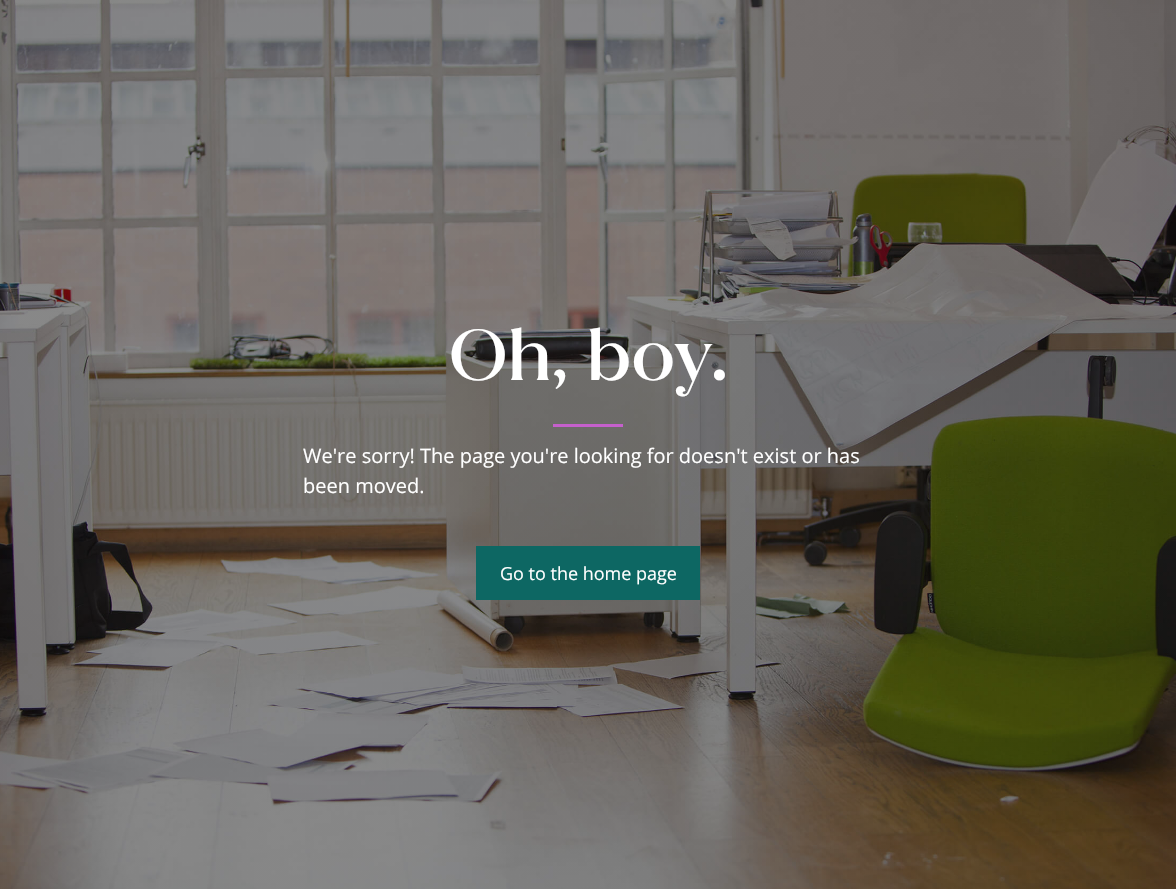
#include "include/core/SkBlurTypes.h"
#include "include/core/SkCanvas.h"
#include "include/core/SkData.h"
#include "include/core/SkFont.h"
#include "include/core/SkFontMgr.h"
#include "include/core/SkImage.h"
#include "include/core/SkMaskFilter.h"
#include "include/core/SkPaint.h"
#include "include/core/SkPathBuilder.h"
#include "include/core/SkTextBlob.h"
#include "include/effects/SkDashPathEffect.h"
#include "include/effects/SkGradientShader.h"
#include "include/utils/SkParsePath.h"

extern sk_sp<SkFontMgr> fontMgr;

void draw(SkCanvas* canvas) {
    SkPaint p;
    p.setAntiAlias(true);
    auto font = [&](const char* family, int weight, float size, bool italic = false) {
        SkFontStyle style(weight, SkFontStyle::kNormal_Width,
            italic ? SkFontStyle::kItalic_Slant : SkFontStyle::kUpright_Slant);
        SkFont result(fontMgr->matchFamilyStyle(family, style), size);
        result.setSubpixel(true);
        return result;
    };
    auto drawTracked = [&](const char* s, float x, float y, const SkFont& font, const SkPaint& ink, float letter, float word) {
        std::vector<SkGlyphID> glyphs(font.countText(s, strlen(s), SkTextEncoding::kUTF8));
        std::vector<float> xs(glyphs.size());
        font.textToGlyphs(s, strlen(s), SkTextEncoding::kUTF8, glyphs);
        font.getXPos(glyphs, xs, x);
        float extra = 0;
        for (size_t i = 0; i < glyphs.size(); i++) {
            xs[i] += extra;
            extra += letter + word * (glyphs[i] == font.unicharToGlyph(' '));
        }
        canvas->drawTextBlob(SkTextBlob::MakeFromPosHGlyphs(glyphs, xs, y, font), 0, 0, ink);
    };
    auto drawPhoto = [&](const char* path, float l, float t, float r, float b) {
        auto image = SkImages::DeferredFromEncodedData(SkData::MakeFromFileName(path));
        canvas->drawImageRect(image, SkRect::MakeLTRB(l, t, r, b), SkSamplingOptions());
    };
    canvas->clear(0xFFFFFFFF);
    drawPhoto("media/1.png", 0, 0, 1176, 889);
    auto font1 = font("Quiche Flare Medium", 500, 72);
    p.setColor(0xFFFFFFFF);
    drawTracked("Oh, boy.", 449, 380, font1, p, -0.25f, 0);
    p.setColor(0xFFC560CC);
    canvas->drawRect(SkRect::MakeLTRB(553, 424, 623, 427), p);
    auto font2 = font("Open Sans", 400, 20);
    p.setColor(0xFFFFFFFF);
    canvas->drawString("We're sorry! The page you're looking for doesn't exist or has", 303, 463, font2, p);
    canvas->drawString("been moved.", 303, 493, font2, p);
    p.setColor(0xFF0D6763);
    canvas->drawRect(SkRect::MakeLTRB(476, 546, 700, 600), p);
    auto font3 = font("Open Sans", 400, 18);
    p.setColor(0xFFFFFFFF);
    canvas->drawString("Go to the home page", 500, 580, font3, p);
}
